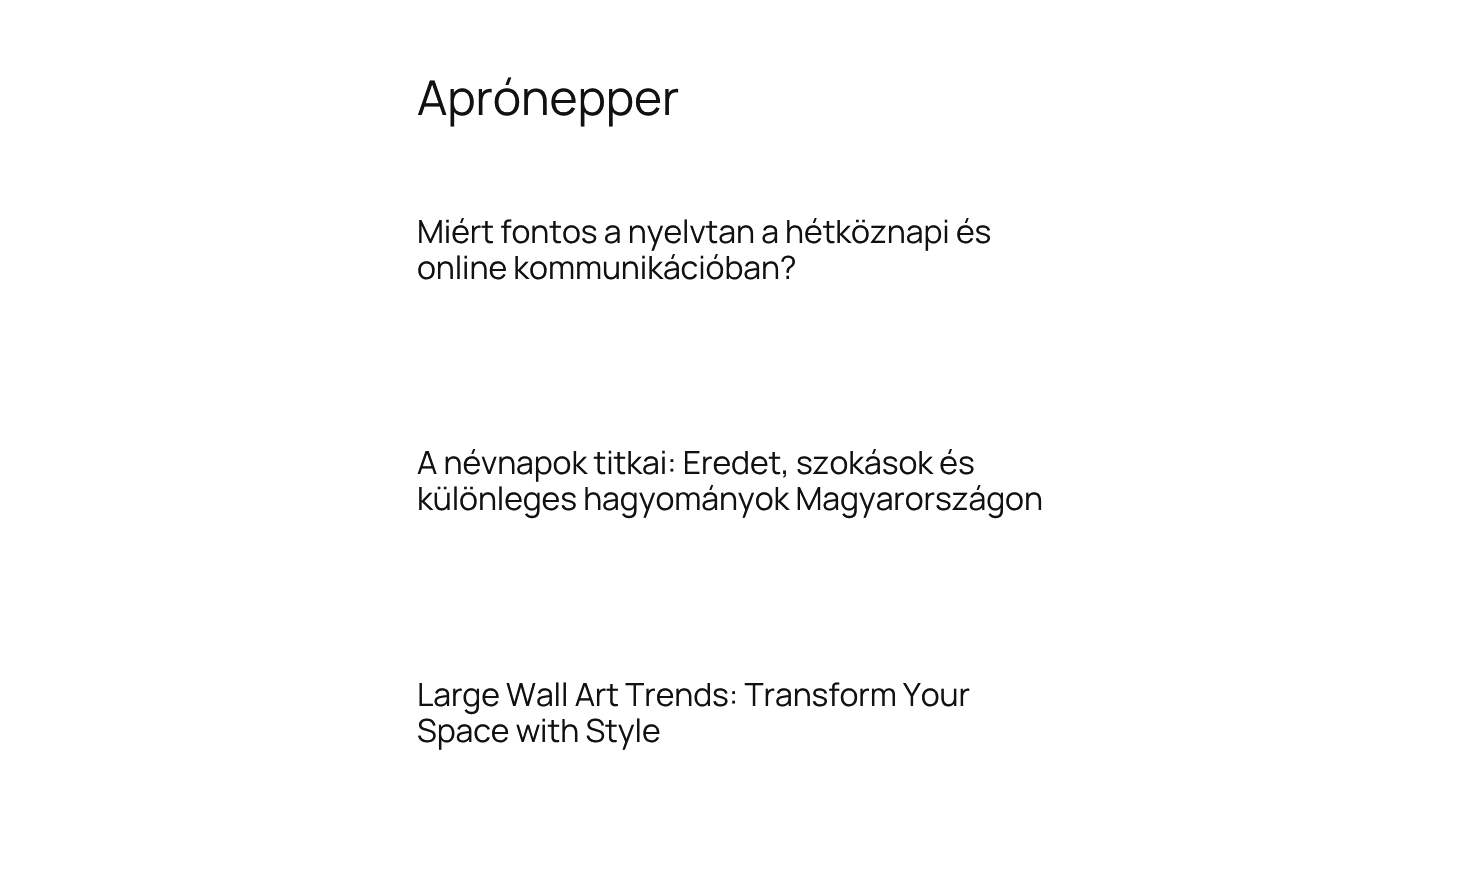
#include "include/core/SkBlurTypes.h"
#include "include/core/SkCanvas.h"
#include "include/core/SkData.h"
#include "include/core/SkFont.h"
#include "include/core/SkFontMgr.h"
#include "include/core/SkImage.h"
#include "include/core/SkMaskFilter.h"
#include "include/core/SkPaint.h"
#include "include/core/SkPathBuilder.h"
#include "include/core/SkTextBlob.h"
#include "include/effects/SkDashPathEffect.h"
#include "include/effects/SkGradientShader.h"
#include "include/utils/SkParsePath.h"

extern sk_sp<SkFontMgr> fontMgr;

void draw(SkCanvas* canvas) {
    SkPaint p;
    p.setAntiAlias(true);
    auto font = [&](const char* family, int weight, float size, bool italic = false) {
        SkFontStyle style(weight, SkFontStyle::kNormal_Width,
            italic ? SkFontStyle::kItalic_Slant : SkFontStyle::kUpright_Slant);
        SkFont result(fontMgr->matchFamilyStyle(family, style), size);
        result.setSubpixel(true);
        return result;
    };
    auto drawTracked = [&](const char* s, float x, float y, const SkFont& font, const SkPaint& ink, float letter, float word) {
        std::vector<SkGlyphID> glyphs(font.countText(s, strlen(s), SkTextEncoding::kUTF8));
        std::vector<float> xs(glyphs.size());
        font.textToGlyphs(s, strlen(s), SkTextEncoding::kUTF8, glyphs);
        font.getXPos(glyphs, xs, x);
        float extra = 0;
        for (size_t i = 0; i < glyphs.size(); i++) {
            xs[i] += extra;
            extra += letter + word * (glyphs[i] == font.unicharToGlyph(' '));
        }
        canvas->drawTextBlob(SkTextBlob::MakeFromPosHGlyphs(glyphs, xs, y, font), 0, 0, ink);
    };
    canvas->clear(0xFFFFFFFF);
    auto font1 = font("Manrope", 400, 48);
    p.setColor(0xFF111111);
    drawTracked("Aprónepper", 417, 115, font1, p, -0.1f, 0);
    auto font2 = font("Manrope", 400, 32);
    {
        const struct { const char* s; float x, y; } items[] = {
            {"Miért fontos a nyelvtan a hétköznapi és", 417, 243},
            {"online kommunikációban?", 417, 279},
            {"A névnapok titkai: Eredet, szokások és", 417, 474},
            {"különleges hagyományok Magyarországon", 417, 510},
            {"Large Wall Art Trends: Transform Your", 417, 706},
            {"Space with Style", 417, 742},
        };
        for (auto [s, x, y] : items) {
            drawTracked(s, x, y, font2, p, -0.1f, 0);
        }
    }
}
